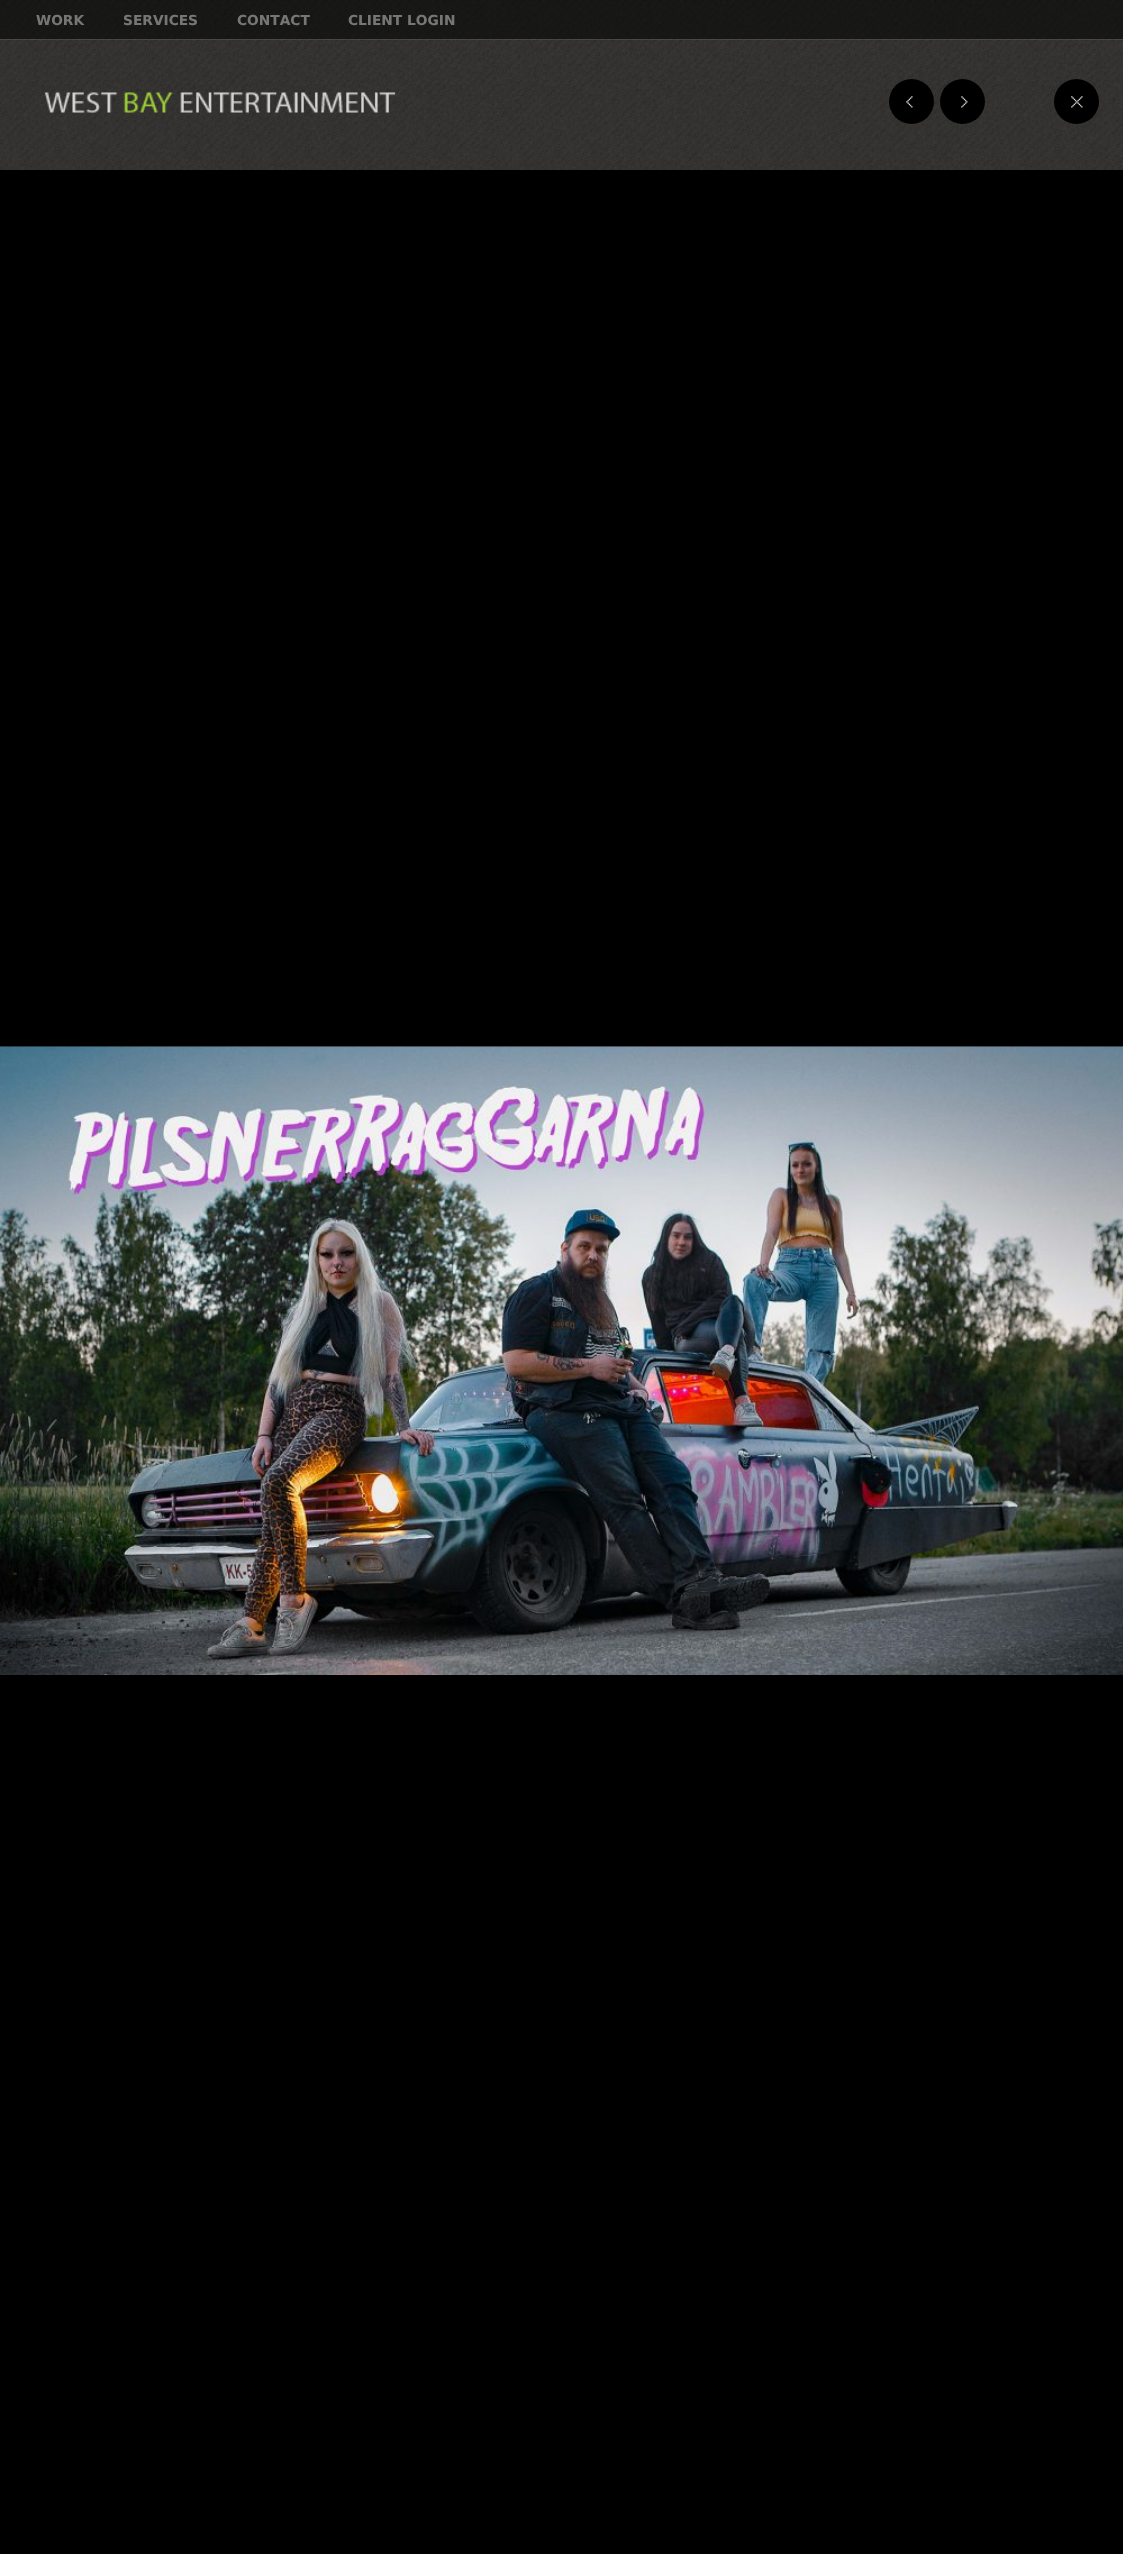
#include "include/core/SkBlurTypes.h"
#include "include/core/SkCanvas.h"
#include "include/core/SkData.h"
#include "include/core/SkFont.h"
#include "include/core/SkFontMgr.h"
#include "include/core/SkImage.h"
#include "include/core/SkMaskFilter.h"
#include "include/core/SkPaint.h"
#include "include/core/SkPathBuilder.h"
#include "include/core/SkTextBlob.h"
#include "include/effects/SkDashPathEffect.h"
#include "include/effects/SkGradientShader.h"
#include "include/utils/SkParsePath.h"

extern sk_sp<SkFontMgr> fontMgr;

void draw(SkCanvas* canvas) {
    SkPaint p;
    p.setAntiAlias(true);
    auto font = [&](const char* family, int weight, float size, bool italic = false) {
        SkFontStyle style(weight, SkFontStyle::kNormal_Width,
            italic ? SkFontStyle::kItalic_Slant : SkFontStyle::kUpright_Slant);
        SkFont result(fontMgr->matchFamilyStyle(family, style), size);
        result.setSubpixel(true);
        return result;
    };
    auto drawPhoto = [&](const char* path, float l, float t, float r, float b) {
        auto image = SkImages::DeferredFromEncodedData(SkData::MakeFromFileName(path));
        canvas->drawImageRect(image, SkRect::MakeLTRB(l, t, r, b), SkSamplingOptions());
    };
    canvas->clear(0xFFFFFFFF);
    drawPhoto("media/1.png", 0, 0, 1123, 170);
    p.setColor(0x8C000000);
    canvas->drawRect(SkRect::MakeLTRB(0, 0, 1123, 39), p);
    auto font1 = font("DejaVu Sans", 700, 13.75f);
    p.setColor(0xFF767676);
    {
        const struct { const char* s; float x, y; } items[] = {
            {"WORK", 36, 25},
            {"SERVICES", 123, 25},
            {"CONTACT", 237, 25},
            {"CLIENT LOGIN", 348, 25},
        };
        for (auto [s, x, y] : items) {
            canvas->drawString(s, x, y, font1, p);
        }
    }
    p.setColor(0x1AFFFFFF);
    canvas->drawRect(SkRect::MakeLTRB(0, 39, 1123, 40), p);
    drawPhoto("media/2.png", 44, 92, 396, 113);
    p.setColor(0xFF000000);
    canvas->drawCircle(911.5f, 101.5f, 22.5f, p);
    drawPhoto("media/3.png", 906, 96, 913, 108);
    canvas->drawCircle(962.5f, 101.5f, 22.5f, p);
    drawPhoto("media/4.png", 961, 96, 968, 108);
    canvas->drawCircle(1076.5f, 101.5f, 22.5f, p);
    drawPhoto("media/5.png", 1071, 96, 1083, 108);
    canvas->drawRect(SkRect::MakeLTRB(0, 170, 1123, 2554), p);
    drawPhoto("media/6.png", 0, 1046, 1123, 1675);
}
